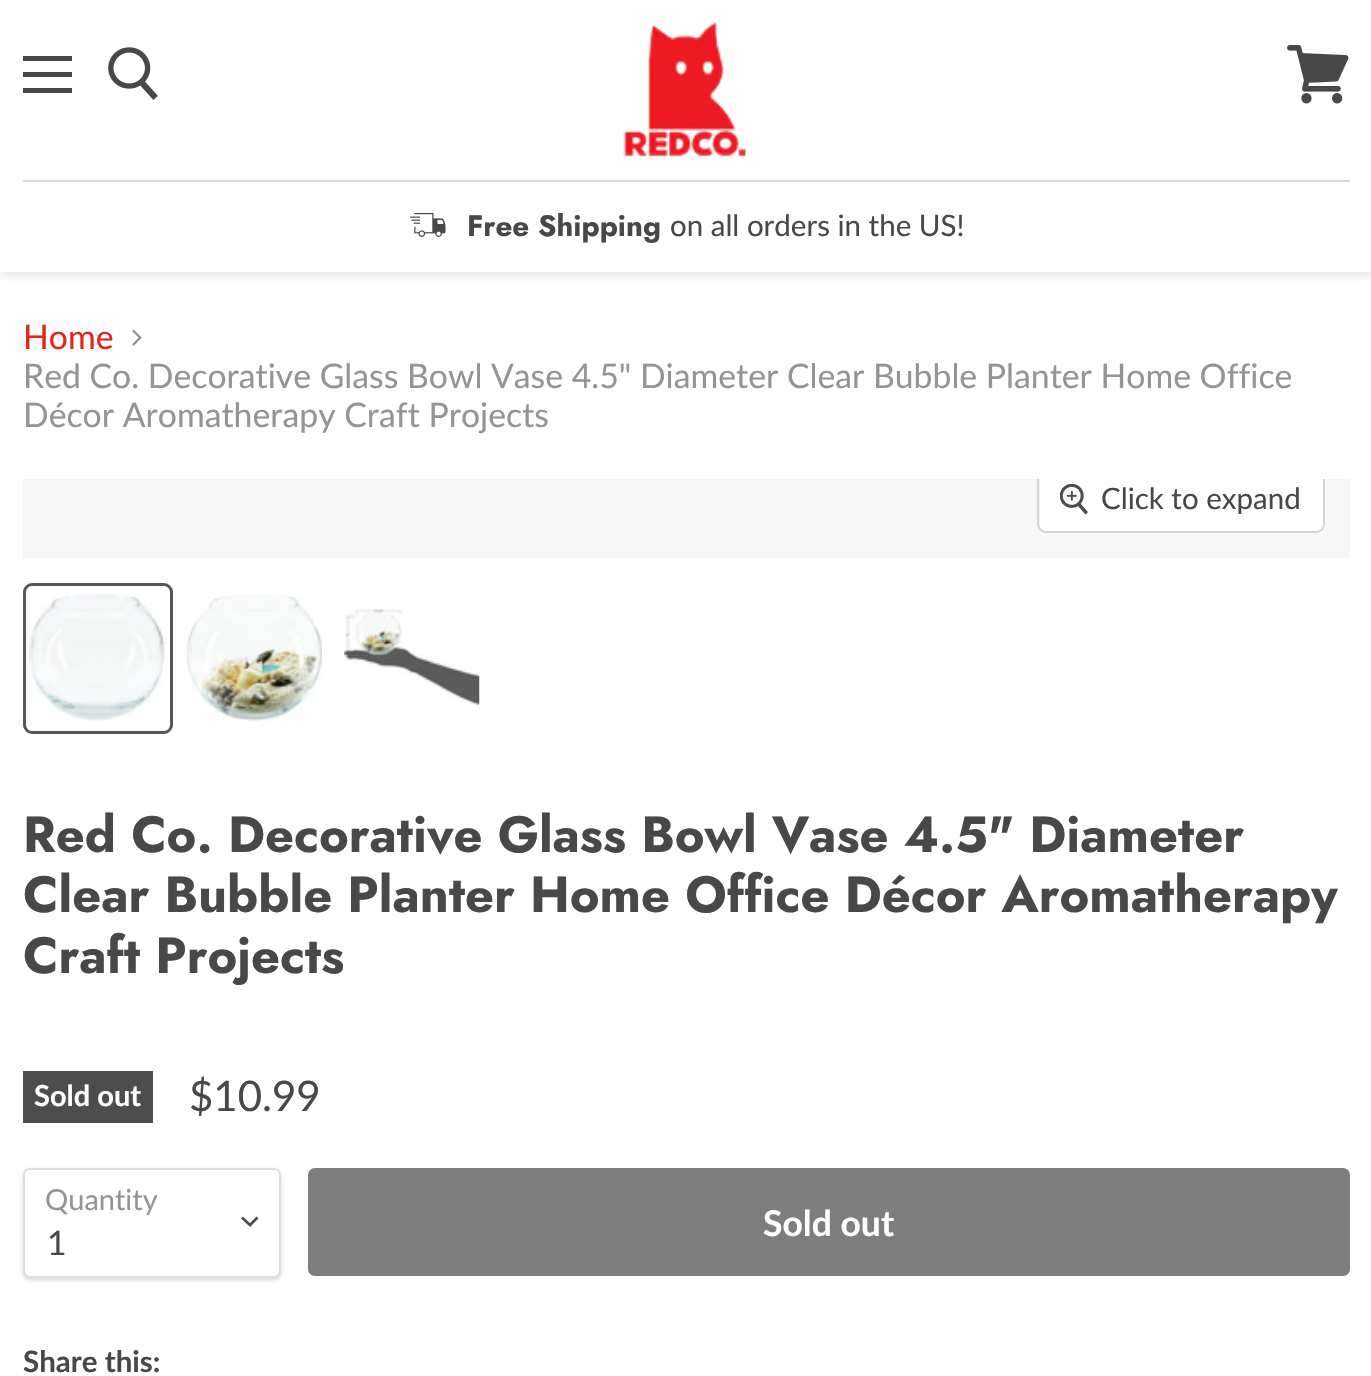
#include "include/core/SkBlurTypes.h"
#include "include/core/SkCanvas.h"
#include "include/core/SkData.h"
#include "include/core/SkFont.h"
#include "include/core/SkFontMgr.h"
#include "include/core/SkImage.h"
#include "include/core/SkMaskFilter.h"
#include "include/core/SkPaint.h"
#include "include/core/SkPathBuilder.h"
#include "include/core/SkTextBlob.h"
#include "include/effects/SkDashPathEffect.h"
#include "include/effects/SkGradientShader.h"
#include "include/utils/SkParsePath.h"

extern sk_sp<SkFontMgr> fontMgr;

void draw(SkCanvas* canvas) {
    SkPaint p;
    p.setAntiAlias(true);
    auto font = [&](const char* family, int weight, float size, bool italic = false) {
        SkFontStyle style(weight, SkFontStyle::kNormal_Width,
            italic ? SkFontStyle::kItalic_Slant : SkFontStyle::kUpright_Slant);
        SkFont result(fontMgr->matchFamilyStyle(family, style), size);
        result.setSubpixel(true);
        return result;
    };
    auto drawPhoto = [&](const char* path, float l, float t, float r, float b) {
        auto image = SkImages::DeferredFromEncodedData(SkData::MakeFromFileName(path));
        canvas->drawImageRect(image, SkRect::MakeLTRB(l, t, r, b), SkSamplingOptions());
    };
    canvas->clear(0xFFFFFFFF);
    canvas->save();
    canvas->clipRect(SkRect::MakeLTRB(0, 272, 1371, 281));
    p.setColor(0x407F7F7F);
    p.setMaskFilter(SkMaskFilter::MakeBlur(kNormal_SkBlurStyle, 4.5f));
    canvas->drawRect(SkRect::MakeLTRB(0, 2, 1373, 275), p);
    p.setMaskFilter(nullptr);
    canvas->restore();
    {
        const struct { float l, t, r, b; SkColor color; } items[] = {
            {23, 56, 72, 61, 0xFF484848},
            {23, 72, 72, 77, 0xFF484848},
            {23, 88, 72, 93, 0xFF484848},
        };
        for (auto [l, t, r, b, color] : items) {
            p.setColor(color);
            canvas->drawRect(SkRect::MakeLTRB(l, t, r, b), p);
        }
    }
    drawPhoto("media/1.png", 108, 47, 158, 100);
    drawPhoto("media/2.png", 1287, 45, 1349, 104);
    drawPhoto("media/3.png", 623, 22, 746, 157);
    p.setColor(0xFFDADADA);
    canvas->drawRect(SkRect::MakeLTRB(23, 180, 1350, 182), p);
    drawPhoto("media/4.png", 410, 213, 446, 237);
    auto font1 = font("Jost", 700, 29.5f);
    p.setColor(0xFF484848);
    canvas->drawString("Free Shipping", 467, 236, font1, p);
    auto font2 = font("Lato", 400, 29.5f);
    canvas->drawString("on all orders in the US!", 670, 236, font2, p);
    auto font3 = font("Lato", 400, 33.75f);
    p.setColor(0xFFE32619);
    canvas->drawString("Home", 23, 349, font3, p);
    drawPhoto("media/5.png", 132, 329, 142, 346);
    p.setColor(0xFF949494);
    canvas->drawString("Red Co. Decorative Glass Bowl Vase 4.5\" Diameter Clear Bubble Planter Home Office", 23, 388, font3, p);
    canvas->drawString("Décor Aromatherapy Craft Projects", 23, 427, font3, p);
    p.setColor(0xFFF7F7F7);
    canvas->drawRect(SkRect::MakeLTRB(23, 479, 1350, 558), p);
    canvas->save();
    canvas->clipRect(SkRect::MakeLTRB(23, 479, 1350, 558));
    p.setStyle(SkPaint::kStroke_Style);
    p.setStrokeWidth(2);
    p.setColor(0xFFD2D2D2);
    canvas->drawRoundRect(SkRect::MakeLTRB(1038, 467, 1324, 532), 8, 8, p);
    canvas->restore();
    p.setStyle(SkPaint::kFill_Style);
    p.setColor(0xE6FFFFFF);
    canvas->drawPath(SkPathBuilder().moveTo(1040, 479).lineTo(1323, 479).lineTo(1323, 524).cubicTo(1323, 528, 1320, 531, 1316, 531).lineTo(1047, 531).cubicTo(1043, 531, 1040, 528, 1040, 524).close().detach(), p);
    drawPhoto("media/6.png", 1060, 484, 1088, 515);
    p.setColor(0xFF484848);
    canvas->drawString("Click to expand", 1101, 509, font2, p);
    p.setStyle(SkPaint::kStroke_Style);
    p.setStrokeWidth(3);
    p.setColor(0xFF585858);
    canvas->drawRoundRect(SkRect::MakeLTRB(24.5f, 584.5f, 171.5f, 732.5f), 7.5f, 7.5f, p);
    drawPhoto("media/7.png", 29, 593, 165, 721);
    drawPhoto("media/8.png", 186, 593, 322, 722);
    drawPhoto("media/9.png", 344, 609, 480, 706);
    auto font4 = font("Jost", 700, 50.6f);
    p.setStyle(SkPaint::kFill_Style);
    p.setColor(0xFF484848);
    {
        const struct { const char* s; float x, y; } items[] = {
            {"Red Co. Decorative Glass Bowl Vase 4.5\" Diameter", 23, 852},
            {"Clear Bubble Planter Home Office Décor Aromatherapy", 23, 912},
            {"Craft Projects", 23, 973},
        };
        for (auto [s, x, y] : items) {
            canvas->drawString(s, x, y, font4, p);
        }
    }
    p.setColor(0xFF4D4D4D);
    canvas->drawRect(SkRect::MakeLTRB(23, 1071, 153, 1123), p);
    auto font5 = font("Lato", 700, 29);
    p.setColor(0xFFFFFFFF);
    canvas->drawString("Sold out", 34, 1106, font5, p);
    auto font6 = font("Lato", 400, 42);
    p.setColor(0xFF484848);
    canvas->drawString("$10.99", 189, 1111, font6, p);
    p.setColor(0x26000000);
    p.setMaskFilter(SkMaskFilter::MakeBlur(kNormal_SkBlurStyle, 2));
    canvas->drawRoundRect(SkRect::MakeLTRB(23, 1170, 281, 1280), 7, 7, p);
    p.setMaskFilter(nullptr);
    p.setColor(0xFFFFFFFF);
    canvas->drawRoundRect(SkRect::MakeLTRB(24, 1169, 280, 1277), 6, 6, p);
    p.setStyle(SkPaint::kStroke_Style);
    p.setStrokeWidth(2);
    p.setColor(0xFFDDDDDD);
    canvas->drawRoundRect(SkRect::MakeLTRB(24, 1169, 280, 1277), 6, 6, p);
    auto font7 = font("Lato", 400, 29);
    p.setStyle(SkPaint::kFill_Style);
    p.setColor(0xFF949494);
    canvas->drawString("Quantity", 45, 1210, font7, p);
    p.setStyle(SkPaint::kStroke_Style);
    p.setStrokeWidth(2.8f);
    p.setStrokeCap(SkPaint::kSquare_Cap);
    p.setColor(0xFF4D4D4D);
    canvas->drawPath(SkPathBuilder().moveTo(250, 1225).lineTo(256.5f, 1218.5f).moveTo(250, 1225).lineTo(243, 1218.5f).detach(), p);
    p.setStyle(SkPaint::kFill_Style);
    p.setColor(0xFF484848);
    canvas->drawString("1", 47, 1255, font3, p);
    p.setColor(0xFF7E7E7E);
    canvas->drawRoundRect(SkRect::MakeLTRB(309, 1169, 1349, 1275), 6, 6, p);
    p.setStyle(SkPaint::kStroke_Style);
    p.setStrokeWidth(2);
    p.setStrokeCap(SkPaint::kButt_Cap);
    canvas->drawRoundRect(SkRect::MakeLTRB(309, 1169, 1349, 1275), 6, 6, p);
    auto font8 = font("Lato", 700, 35.5f);
    p.setStyle(SkPaint::kFill_Style);
    p.setColor(0xFFFFFFFF);
    canvas->drawString("Sold out", 763, 1236, font8, p);
    auto font9 = font("Lato", 700, 29.5f);
    p.setColor(0xFF484848);
    canvas->drawString("Share this:", 23, 1372, font9, p);
}
